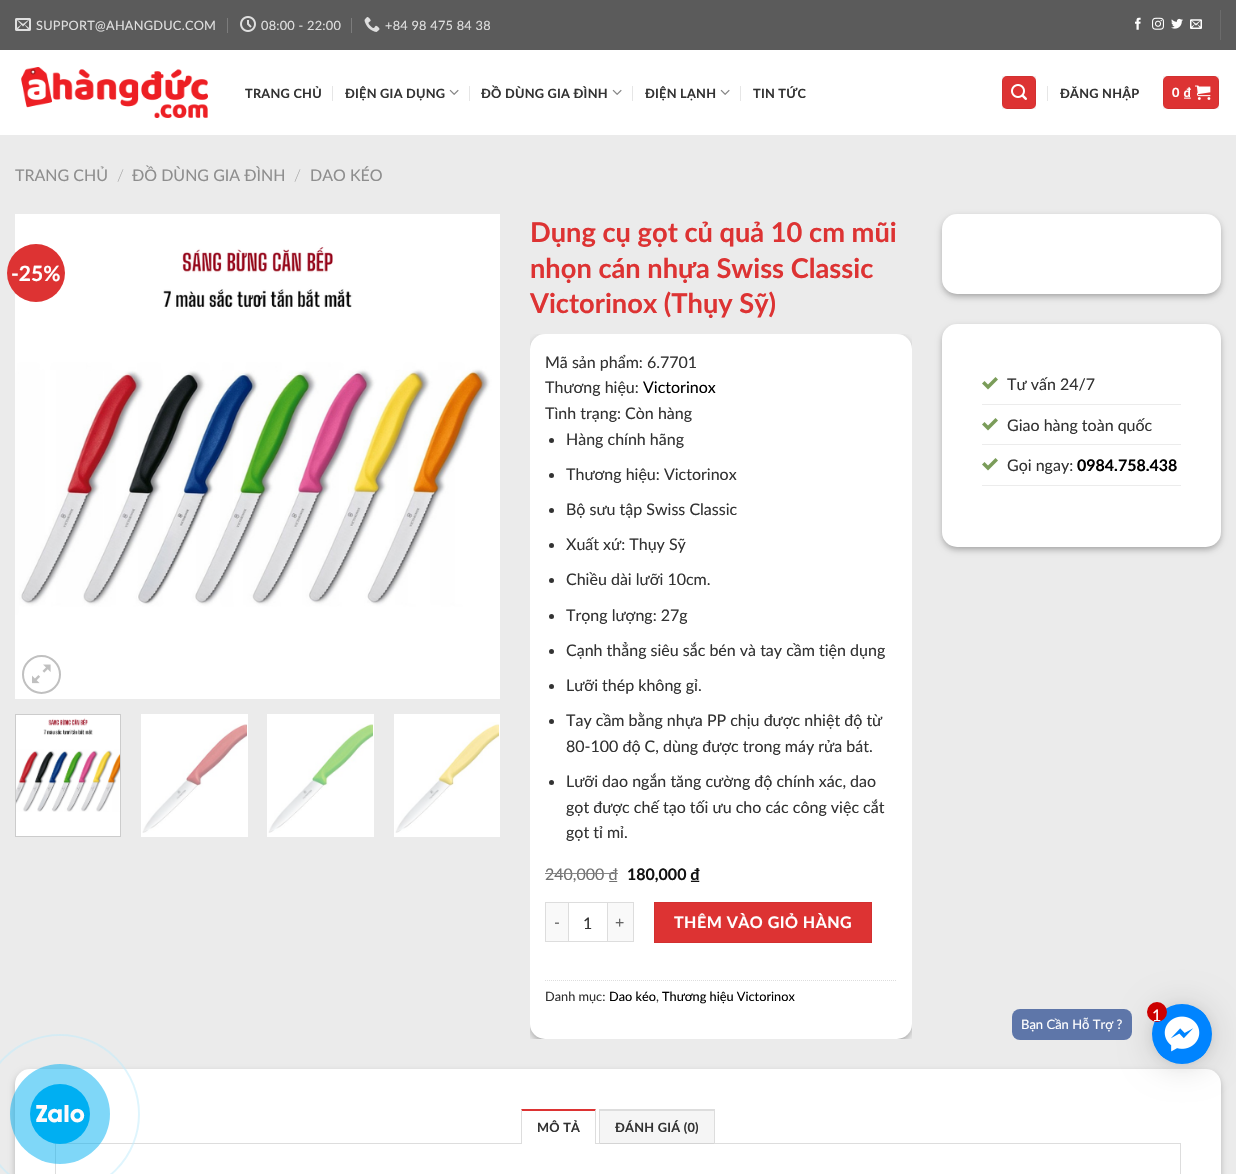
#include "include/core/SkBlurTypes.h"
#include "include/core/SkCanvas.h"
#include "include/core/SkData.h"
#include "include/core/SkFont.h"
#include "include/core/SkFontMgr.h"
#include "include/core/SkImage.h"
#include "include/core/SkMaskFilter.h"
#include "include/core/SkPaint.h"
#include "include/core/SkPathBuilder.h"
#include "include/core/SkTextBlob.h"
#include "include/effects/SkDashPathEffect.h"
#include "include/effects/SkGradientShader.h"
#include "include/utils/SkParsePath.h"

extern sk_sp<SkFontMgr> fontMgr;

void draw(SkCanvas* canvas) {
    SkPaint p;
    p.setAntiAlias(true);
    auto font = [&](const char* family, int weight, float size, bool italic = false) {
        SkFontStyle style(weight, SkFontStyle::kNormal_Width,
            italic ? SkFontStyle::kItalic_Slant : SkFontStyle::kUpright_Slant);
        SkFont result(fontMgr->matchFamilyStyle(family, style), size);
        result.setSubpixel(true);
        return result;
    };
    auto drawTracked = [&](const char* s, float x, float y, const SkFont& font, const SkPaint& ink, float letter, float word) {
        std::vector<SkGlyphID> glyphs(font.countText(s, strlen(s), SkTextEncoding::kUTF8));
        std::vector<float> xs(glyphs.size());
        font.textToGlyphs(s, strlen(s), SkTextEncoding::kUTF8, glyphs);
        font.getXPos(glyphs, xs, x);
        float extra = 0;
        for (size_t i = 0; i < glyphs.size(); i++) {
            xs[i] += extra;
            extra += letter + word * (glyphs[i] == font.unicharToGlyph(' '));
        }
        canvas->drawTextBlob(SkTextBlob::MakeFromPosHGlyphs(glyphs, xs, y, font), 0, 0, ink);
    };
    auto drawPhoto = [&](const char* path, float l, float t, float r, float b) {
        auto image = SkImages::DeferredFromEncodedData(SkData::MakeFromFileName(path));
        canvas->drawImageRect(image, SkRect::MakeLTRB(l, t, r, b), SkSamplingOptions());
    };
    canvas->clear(0xFFFFFFFF);
    p.setColor(0xFF5B5B5B);
    canvas->drawRect(SkRect::MakeLTRB(0, 0, 1236, 50), p);
    drawPhoto("media/1.png", 15, 18, 31, 31);
    auto font1 = font("Lato", 400, 12.75f);
    p.setColor(0xFFDEDEDE);
    drawTracked("SUPPORT@AHANGDUC.COM", 36, 30, font1, p, 0.25f, 0);
    p.setColor(0xFF7C7C7C);
    canvas->drawRect(SkRect::MakeLTRB(227, 18, 228, 33), p);
    drawPhoto("media/2.png", 240, 16, 256, 32);
    p.setColor(0xFFDEDEDE);
    drawTracked("08:00 - 22:00", 261, 30, font1, p, 0.25f, 0);
    p.setColor(0xFF7C7C7C);
    canvas->drawRect(SkRect::MakeLTRB(351, 18, 352, 33), p);
    drawPhoto("media/3.png", 364, 17, 380, 32);
    p.setColor(0xFFDEDEDE);
    drawTracked("+84 98 475 84 38", 385, 30, font1, p, 0.25f, 0);
    drawPhoto("media/4.png", 1135, 17, 1141, 30);
    drawPhoto("media/5.png", 1152, 17, 1164, 30);
    drawPhoto("media/6.png", 1171, 18, 1183, 29);
    drawPhoto("media/7.png", 1190, 19, 1202, 29);
    p.setColor(0xFF6B6B6B);
    canvas->drawRect(SkRect::MakeLTRB(1220, 10, 1221, 40), p);
    drawPhoto("media/8.png", 21, 67, 208, 118);
    auto font2 = font("Lato", 700, 12.75f);
    p.setColor(0xFF333333);
    drawTracked("TRANG CHỦ", 245, 98, font2, p, 0.25f, 0);
    p.setColor(0xFFE6E6E6);
    canvas->drawRect(SkRect::MakeLTRB(332, 86, 333, 101), p);
    p.setColor(0xFF333333);
    drawTracked("ĐIỆN GIA DỤNG", 345, 98, font2, p, 0.25f, 0);
    drawPhoto("media/9.png", 449, 89, 459, 95);
    p.setColor(0xFFE6E6E6);
    canvas->drawRect(SkRect::MakeLTRB(469, 86, 470, 101), p);
    p.setColor(0xFF333333);
    drawTracked("ĐỒ DÙNG GIA ĐÌNH", 481, 98, font2, p, 0.25f, 0);
    drawPhoto("media/9.png", 612, 89, 622, 95);
    p.setColor(0xFFE6E6E6);
    canvas->drawRect(SkRect::MakeLTRB(632, 86, 633, 101), p);
    p.setColor(0xFF333333);
    drawTracked("ĐIỆN LẠNH", 645, 98, font2, p, 0.25f, 0);
    drawPhoto("media/9.png", 720, 89, 730, 95);
    p.setColor(0xFFE6E6E6);
    canvas->drawRect(SkRect::MakeLTRB(740, 86, 741, 101), p);
    p.setColor(0xFF333333);
    drawTracked("TIN TỨC", 753, 98, font2, p, 0.25f, 0);
    p.setColor(0xFFDD3333);
    canvas->drawRoundRect(SkRect::MakeLTRB(1002, 76, 1036, 109), 5, 5, p);
    p.setStyle(SkPaint::kStroke_Style);
    p.setStrokeWidth(1);
    p.setColor(0x0D000000);
    canvas->drawRect(SkRect::MakeLTRB(1002.5f, 76.5f, 1035.5f, 108.5f), p);
    drawPhoto("media/10.png", 1011, 84, 1027, 100);
    p.setStyle(SkPaint::kFill_Style);
    p.setColor(0xFFE6E6E6);
    canvas->drawRect(SkRect::MakeLTRB(1047, 86, 1048, 101), p);
    p.setColor(0xFF333333);
    drawTracked("ĐĂNG NHẬP", 1060, 98, font2, p, 0.25f, 0);
    p.setColor(0xFFDD3333);
    canvas->drawRoundRect(SkRect::MakeLTRB(1163, 76, 1219, 109), 5, 5, p);
    p.setStyle(SkPaint::kStroke_Style);
    p.setColor(0x0D000000);
    canvas->drawRect(SkRect::MakeLTRB(1163.5f, 76.5f, 1218.5f, 108.5f), p);
    p.setStyle(SkPaint::kFill_Style);
    p.setColor(0xFFFFFFFF);
    drawTracked("0 ₫", 1172, 97, font2, p, 0.5f, 0);
    drawPhoto("media/11.png", 1195, 85, 1211, 100);
    p.setColor(0xFFEBEBEB);
    canvas->drawRect(SkRect::MakeLTRB(0, 135, 1236, 1174), p);
    auto font3 = font("Lato", 400, 16);
    p.setColor(0xFF8E8E8E);
    canvas->drawString("TRANG CHỦ", 15, 181, font3, p);
    auto font4 = font("Lato", 300, 16);
    p.setColor(0xFFA5A5A5);
    canvas->drawString("/", 117, 181, font4, p);
    p.setColor(0xFF8E8E8E);
    canvas->drawString("ĐỒ DÙNG GIA ĐÌNH", 132, 181, font3, p);
    p.setColor(0xFFA5A5A5);
    canvas->drawString("/", 294, 181, font4, p);
    p.setColor(0xFF8E8E8E);
    canvas->drawString("DAO KÉO", 310, 181, font3, p);
    drawPhoto("media/12.png", 15, 214, 500, 699);
    p.setColor(0xFFDD3333);
    canvas->drawCircle(36, 273, 29, p);
    auto font5 = font("Lato", 700, 21);
    p.setColor(0xFFFFFFFF);
    canvas->drawString("-25%", 11, 281, font5, p);
    p.setStyle(SkPaint::kStroke_Style);
    p.setStrokeWidth(2);
    p.setColor(0xFFC0C0C0);
    canvas->drawCircle(41.5f, 674.5f, 18.5f, p);
    drawPhoto("media/13.png", 32, 664, 51, 684);
    p.setStyle(SkPaint::kFill_Style);
    p.setColor(0xFFFFFFFF);
    canvas->drawRect(SkRect::MakeLTRB(15.5f, 714.5f, 120.5f, 836.5f), p);
    p.setStyle(SkPaint::kStroke_Style);
    p.setStrokeWidth(1);
    p.setColor(0xFFCCCCCC);
    canvas->drawRect(SkRect::MakeLTRB(15.5f, 714.5f, 120.5f, 836.5f), p);
    drawPhoto("media/14.png", 16, 718, 120, 812);
    p.setStyle(SkPaint::kFill_Style);
    p.setColor(0xFFFFFFFF);
    canvas->drawRect(SkRect::MakeLTRB(141, 714, 248, 837), p);
    drawPhoto("media/15.png", 142, 724, 247, 833);
    canvas->drawRect(SkRect::MakeLTRB(267, 714, 374, 837), p);
    drawPhoto("media/16.png", 268, 724, 373, 833);
    canvas->drawRect(SkRect::MakeLTRB(394, 714, 500, 837), p);
    drawPhoto("media/17.png", 395, 722, 499, 833);
    auto font6 = font("Lato", 700, 27.25f);
    p.setColor(0xFFDD3333);
    {
        const struct { const char* s; float x, y; } items[] = {
            {"Dụng cụ gọt củ quả 10 cm mũi", 530, 242},
            {"nhọn cán nhựa Swiss Classic", 530, 278},
            {"Victorinox (Thụy Sỹ)", 530, 313},
        };
        for (auto [s, x, y] : items) {
            canvas->drawString(s, x, y, font6, p);
        }
    }
    canvas->save();
    canvas->clipRect(SkRect::MakeLTRB(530, 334, 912, 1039));
    p.setColor(0x3B000000);
    p.setMaskFilter(SkMaskFilter::MakeBlur(kNormal_SkBlurStyle, 3));
    canvas->drawRoundRect(SkRect::MakeLTRB(530, 337, 912, 1042), 15, 15, p);
    p.setMaskFilter(nullptr);
    p.setColor(0x29000000);
    p.setMaskFilter(SkMaskFilter::MakeBlur(kNormal_SkBlurStyle, 3));
    canvas->drawRoundRect(SkRect::MakeLTRB(534, 341, 908, 1038), 11, 11, p);
    p.setMaskFilter(nullptr);
    canvas->restore();
    p.setColor(0xFFFFFFFF);
    canvas->drawRoundRect(SkRect::MakeLTRB(530, 334, 912, 1039), 15, 15, p);
    p.setColor(0xFF333333);
    canvas->drawString("Mã sản phẩm: 6.7701", 545, 368, font3, p);
    canvas->drawString("Thương hiệu:", 545, 393, font3, p);
    p.setColor(0xFF000000);
    canvas->drawString("Victorinox", 643, 393, font3, p);
    p.setColor(0xFF333333);
    canvas->drawString("Tình trạng: Còn hàng", 545, 419, font3, p);
    canvas->drawCircle(551.5f, 440.5f, 2.5f, p);
    canvas->drawString("Hàng chính hãng", 566, 445, font3, p);
    canvas->drawCircle(551.5f, 475.5f, 2.5f, p);
    canvas->drawString("Thương hiệu: Victorinox", 566, 480, font3, p);
    canvas->drawCircle(551.5f, 510.5f, 2.5f, p);
    canvas->drawString("Bộ sưu tập Swiss Classic", 566, 515, font3, p);
    canvas->drawCircle(551.5f, 545.5f, 2.5f, p);
    canvas->drawString("Xuất xứ: Thụy Sỹ", 566, 550, font3, p);
    canvas->drawCircle(551.5f, 580.5f, 2.5f, p);
    canvas->drawString("Chiều dài lưỡi 10cm.", 566, 585, font3, p);
    canvas->drawCircle(551.5f, 616.5f, 2.5f, p);
    canvas->drawString("Trọng lượng: 27g", 566, 621, font3, p);
    canvas->drawCircle(551.5f, 651.5f, 2.5f, p);
    canvas->drawString("Cạnh thẳng siêu sắc bén và tay cầm tiện dụng", 566, 656, font3, p);
    canvas->drawCircle(551.5f, 686.5f, 2.5f, p);
    canvas->drawString("Lưỡi thép không gỉ.", 566, 691, font3, p);
    canvas->drawCircle(551.5f, 721.5f, 2.5f, p);
    canvas->drawString("Tay cầm bằng nhựa PP chịu được nhiệt độ từ", 566, 726, font3, p);
    canvas->drawString("80-100 độ C, dùng được trong máy rửa bát.", 566, 752, font3, p);
    canvas->drawCircle(551.5f, 782.5f, 2.5f, p);
    {
        const struct { const char* s; float x, y; } items[] = {
            {"Lưỡi dao ngắn tăng cường độ chính xác, dao", 566, 787},
            {"gọt được chế tạo tối ưu cho các công việc cắt", 566, 813},
            {"gọt tỉ mỉ.", 566, 838},
        };
        for (auto [s, x, y] : items) {
            canvas->drawString(s, x, y, font3, p);
        }
    }
    p.setColor(0xFF707070);
    canvas->drawString("240,000 ₫", 545, 880, font3, p);
    p.setColor(0xFF858585);
    canvas->drawRect(SkRect::MakeLTRB(545, 873, 618, 874), p);
    auto font7 = font("Lato", 700, 16);
    p.setColor(0xFF111111);
    canvas->drawString("180,000 ₫", 627, 880, font7, p);
    {
        const struct { float l, t, r, b; SkColor color; } items[] = {
            {546, 903, 568, 941, 0xFFF9F9F9},
            {545, 902, 568, 903, 0xFFDDDDDD},
            {545, 941, 568, 942, 0xFFDDDDDD},
            {545, 902, 546, 942, 0xFFDDDDDD},
        };
        for (auto [l, t, r, b, color] : items) {
            p.setColor(color);
            canvas->drawRect(SkRect::MakeLTRB(l, t, r, b), p);
        }
    }
    p.setColor(0xFF666666);
    canvas->drawString("-", 554, 928, font3, p);
    p.setStyle(SkPaint::kStroke_Style);
    p.setColor(0xFFDDDDDD);
    canvas->drawRect(SkRect::MakeLTRB(568.5f, 902.5f, 607.5f, 941.5f), p);
    p.setStyle(SkPaint::kFill_Style);
    p.setColor(0xFF333333);
    canvas->drawString("1", 583, 929, font3, p);
    {
        const struct { float l, t, r, b; SkColor color; } items[] = {
            {608, 903, 633, 941, 0xFFF9F9F9},
            {608, 902, 634, 903, 0xFFDDDDDD},
            {633, 902, 634, 942, 0xFFDDDDDD},
            {608, 941, 634, 942, 0xFFDDDDDD},
        };
        for (auto [l, t, r, b, color] : items) {
            p.setColor(color);
            canvas->drawRect(SkRect::MakeLTRB(l, t, r, b), p);
        }
    }
    p.setColor(0xFF666666);
    canvas->drawString("+", 615, 928, font3, p);
    p.setColor(0xFFDD3333);
    canvas->drawRect(SkRect::MakeLTRB(654.5f, 902.5f, 871.5f, 942.5f), p);
    p.setStyle(SkPaint::kStroke_Style);
    p.setColor(0xFFD23030);
    canvas->drawRect(SkRect::MakeLTRB(654.5f, 902.5f, 871.5f, 942.5f), p);
    p.setStyle(SkPaint::kFill_Style);
    p.setColor(0xFFFFFFFF);
    drawTracked("THÊM VÀO GIỎ HÀNG", 674, 928, font7, p, 0.5f, 0);
    p.setStyle(SkPaint::kStroke_Style);
    p.setColor(0xFFDDDDDD);
    p.setPathEffect(SkDashPathEffect::Make({{1, 1}}, 0));
    canvas->drawPath(SkPathBuilder().moveTo(545, 980.5f).lineTo(897, 980.5f).detach(), p);
    p.setPathEffect(nullptr);
    p.setStyle(SkPaint::kFill_Style);
    p.setColor(0xFF333333);
    canvas->drawString("Danh mục:", 545, 1001, font1, p);
    p.setColor(0xFF000000);
    canvas->drawString("Dao kéo", 609, 1001, font1, p);
    p.setColor(0xFF333333);
    canvas->drawString(",", 656, 1001, font1, p);
    p.setColor(0xFF000000);
    canvas->drawString("Thương hiệu Victorinox", 662, 1001, font1, p);
    p.setColor(0x3B000000);
    p.setMaskFilter(SkMaskFilter::MakeBlur(kNormal_SkBlurStyle, 3));
    canvas->drawRoundRect(SkRect::MakeLTRB(942, 217, 1221, 297), 15, 15, p);
    p.setMaskFilter(nullptr);
    p.setColor(0x29000000);
    p.setMaskFilter(SkMaskFilter::MakeBlur(kNormal_SkBlurStyle, 3));
    canvas->drawRoundRect(SkRect::MakeLTRB(946, 221, 1217, 293), 11, 11, p);
    p.setMaskFilter(nullptr);
    p.setColor(0xFFFFFFFF);
    canvas->drawRoundRect(SkRect::MakeLTRB(942, 214, 1221, 294), 15, 15, p);
    p.setColor(0x3B000000);
    p.setMaskFilter(SkMaskFilter::MakeBlur(kNormal_SkBlurStyle, 3));
    canvas->drawRoundRect(SkRect::MakeLTRB(942, 327, 1221, 550), 15, 15, p);
    p.setMaskFilter(nullptr);
    p.setColor(0x29000000);
    p.setMaskFilter(SkMaskFilter::MakeBlur(kNormal_SkBlurStyle, 3));
    canvas->drawRoundRect(SkRect::MakeLTRB(946, 331, 1217, 546), 11, 11, p);
    p.setMaskFilter(nullptr);
    p.setColor(0xFFFFFFFF);
    canvas->drawRoundRect(SkRect::MakeLTRB(942, 324, 1221, 547), 15, 15, p);
    p.setColor(0xFFECECEC);
    canvas->drawRect(SkRect::MakeLTRB(982, 404, 1181, 405), p);
    drawPhoto("media/18.png", 982, 377, 998, 390);
    p.setColor(0xFF333333);
    canvas->drawString("Tư vấn 24/7", 1007, 390, font3, p);
    p.setColor(0xFFECECEC);
    canvas->drawRect(SkRect::MakeLTRB(982, 444, 1181, 445), p);
    drawPhoto("media/18.png", 982, 418, 998, 431);
    p.setColor(0xFF333333);
    canvas->drawString("Giao hàng toàn quốc", 1007, 431, font3, p);
    p.setColor(0xFFECECEC);
    canvas->drawRect(SkRect::MakeLTRB(982, 485, 1181, 486), p);
    drawPhoto("media/18.png", 982, 458, 998, 471);
    p.setColor(0xFF333333);
    canvas->drawString("Gọi ngay:", 1007, 471, font3, p);
    p.setColor(0xFF000000);
    canvas->drawString("0984.758.438", 1077, 471, font7, p);
    p.setColor(0x3B000000);
    p.setMaskFilter(SkMaskFilter::MakeBlur(kNormal_SkBlurStyle, 3));
    canvas->drawRoundRect(SkRect::MakeLTRB(15, 1072, 1221, 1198), 15, 15, p);
    p.setMaskFilter(nullptr);
    p.setColor(0xFFFFFFFF);
    canvas->drawRoundRect(SkRect::MakeLTRB(15, 1069, 1221, 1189), 15, 15, p);
    p.setStyle(SkPaint::kStroke_Style);
    p.setColor(0xFFDDDDDD);
    canvas->drawRect(SkRect::MakeLTRB(55.5f, 1143.5f, 1180.5f, 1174.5f), p);
    p.setStyle(SkPaint::kFill_Style);
    p.setColor(0xFFFFFFFF);
    canvas->drawRect(SkRect::MakeLTRB(521, 1143, 596, 1144), p);
    p.setColor(0xFFDD3333);
    canvas->drawPath(SkPathBuilder().moveTo(521, 1109).lineTo(596, 1109).lineTo(595, 1111).lineTo(522, 1111).close().detach(), p);
    p.setColor(0xFFDDDDDD);
    canvas->drawPath(SkPathBuilder().moveTo(596, 1109).lineTo(596, 1144).lineTo(595, 1144).lineTo(595, 1111).close().detach(), p);
    canvas->drawPath(SkPathBuilder().moveTo(521, 1144).lineTo(521, 1109).lineTo(522, 1111).lineTo(522, 1144).close().detach(), p);
    p.setColor(0xFF333333);
    drawTracked("MÔ TẢ", 537, 1132, font2, p, 0.25f, 0);
    {
        const struct { float l, t, r, b; SkColor color; } items[] = {
            {600, 1111, 714, 1144, 0x0A000000},
            {599, 1109, 715, 1111, 0xFFDDDDDD},
            {714, 1109, 715, 1144, 0xFFDDDDDD},
            {599, 1109, 600, 1144, 0xFFDDDDDD},
        };
        for (auto [l, t, r, b, color] : items) {
            p.setColor(color);
            canvas->drawRect(SkRect::MakeLTRB(l, t, r, b), p);
        }
    }
    p.setColor(0xFF333333);
    drawTracked("ĐÁNH GIÁ (0)", 615, 1132, font2, p, 0.25f, 0);
    p.setColor(0x29000000);
    p.setMaskFilter(SkMaskFilter::MakeBlur(kNormal_SkBlurStyle, 16));
    canvas->drawRoundRect(SkRect::MakeLTRB(1152, 1006, 1212, 1066), 30, 30, p);
    p.setMaskFilter(nullptr);
    p.setColor(0x0F000000);
    p.setMaskFilter(SkMaskFilter::MakeBlur(kNormal_SkBlurStyle, 3));
    canvas->drawRoundRect(SkRect::MakeLTRB(1152, 1005, 1212, 1065), 30, 30, p);
    p.setMaskFilter(nullptr);
    p.setColor(0xFF0084FF);
    canvas->drawCircle(1182, 1034, 30, p);
    drawPhoto("media/19.png", 1158, 1010, 1206, 1058);
    p.setColor(0xFFCC0000);
    canvas->drawCircle(1157, 1012, 10, p);
    p.setColor(0xFFFFFFFF);
    canvas->drawString("1", 1152, 1021, font3, p);
    p.setColor(0xCC3B5998);
    canvas->drawRoundRect(SkRect::MakeLTRB(1012, 1009, 1132, 1040), 8, 8, p);
    auto font8 = font("Lato", 400, 13);
    p.setColor(0xFFFFFFFF);
    canvas->drawString("Bạn Cần Hỗ Trợ ?", 1021, 1029, font8, p);
    p.setStyle(SkPaint::kStroke_Style);
    p.setStrokeWidth(2);
    p.setColor(0x80BFEBFC);
    canvas->drawCircle(60, 1114, 79, p);
    p.setStyle(SkPaint::kFill_Style);
    p.setColor(0x8000AFF2);
    canvas->drawCircle(60, 1114, 50, p);
    p.setColor(0xFF00AFF2);
    canvas->drawCircle(60, 1114, 30, p);
    drawPhoto("media/20.png", 36, 1105, 85, 1123);
}
